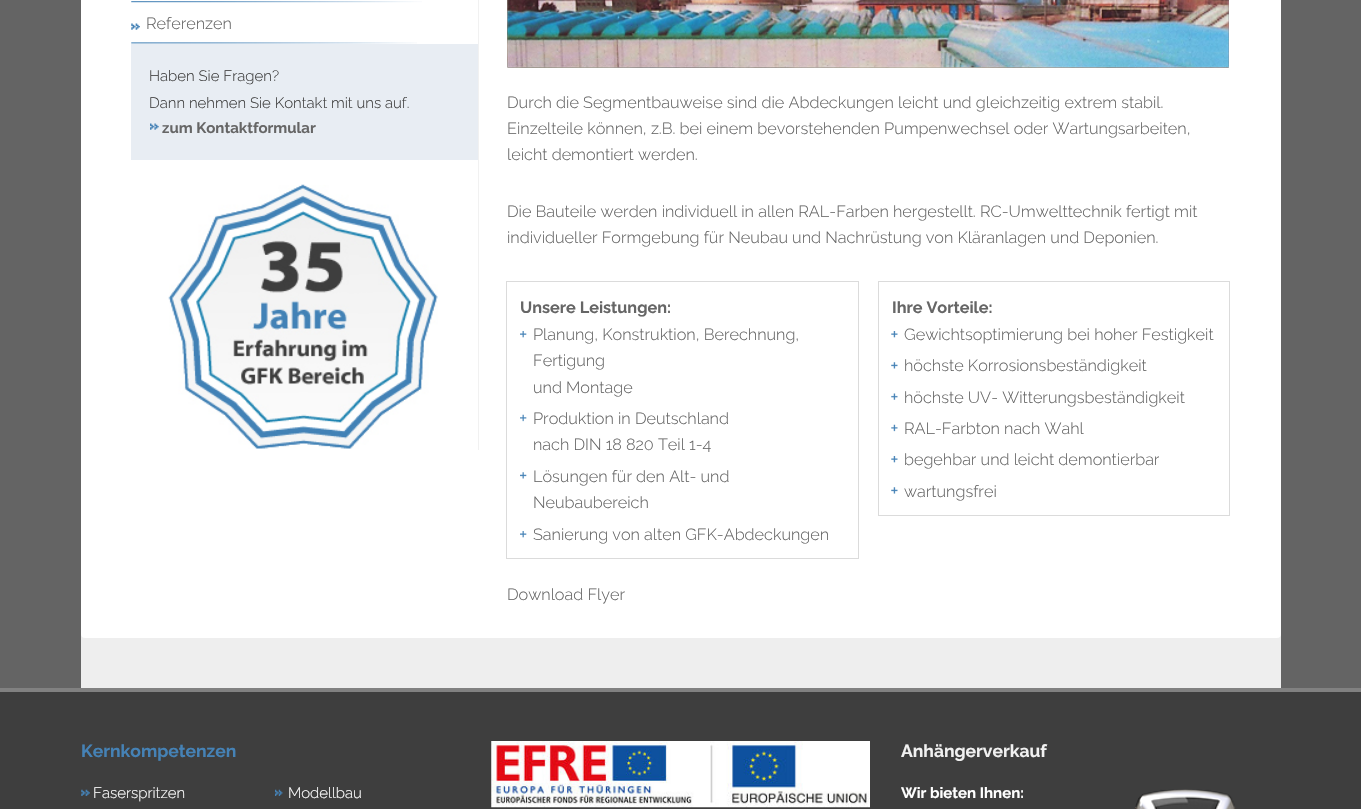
#include "include/core/SkBlurTypes.h"
#include "include/core/SkCanvas.h"
#include "include/core/SkData.h"
#include "include/core/SkFont.h"
#include "include/core/SkFontMgr.h"
#include "include/core/SkImage.h"
#include "include/core/SkMaskFilter.h"
#include "include/core/SkPaint.h"
#include "include/core/SkPathBuilder.h"
#include "include/core/SkTextBlob.h"
#include "include/effects/SkDashPathEffect.h"
#include "include/effects/SkGradientShader.h"
#include "include/utils/SkParsePath.h"

extern sk_sp<SkFontMgr> fontMgr;

void draw(SkCanvas* canvas) {
    SkPaint p;
    p.setAntiAlias(true);
    auto font = [&](const char* family, int weight, float size, bool italic = false) {
        SkFontStyle style(weight, SkFontStyle::kNormal_Width,
            italic ? SkFontStyle::kItalic_Slant : SkFontStyle::kUpright_Slant);
        SkFont result(fontMgr->matchFamilyStyle(family, style), size);
        result.setSubpixel(true);
        return result;
    };
    auto drawPhoto = [&](const char* path, float l, float t, float r, float b) {
        auto image = SkImages::DeferredFromEncodedData(SkData::MakeFromFileName(path));
        canvas->drawImageRect(image, SkRect::MakeLTRB(l, t, r, b), SkSamplingOptions());
    };
    canvas->clear(0xFF646464);
    p.setColor(0xFFEEEEEE);
    canvas->drawRect(SkRect::MakeLTRB(81, 634, 1281, 688), p);
    p.setColor(0xFFFFFFFF);
    canvas->drawRoundRect(SkRect::MakeLTRB(81, -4, 1281, 638), 4, 4, p);
    p.setColor(0xFFF1F1F1);
    canvas->drawRect(SkRect::MakeLTRB(478, 0, 479, 450), p);
    drawPhoto("media/1.png", 131, 1, 422, 3);
    drawPhoto("media/2.png", 131, 42, 417, 44);
    drawPhoto("media/3.png", 131, 23, 140, 30);
    auto font1 = font("Raleway", 300, 16.25f);
    p.setColor(0xFF666666);
    canvas->drawString("Referenzen", 146, 29, font1, p);
    p.setColor(0xFFE8EDF3);
    canvas->drawRect(SkRect::MakeLTRB(131, 44, 478, 160), p);
    auto font2 = font("Raleway", 300, 15);
    p.setColor(0xFF3F3F3F);
    canvas->drawString("Haben Sie Fragen?", 149, 81, font2, p);
    canvas->drawString("Dann nehmen Sie Kontakt mit uns auf.", 149, 108, font2, p);
    drawPhoto("media/4.png", 150, 123, 159, 130);
    auto font3 = font("Raleway", 700, 15);
    p.setColor(0xFF666666);
    canvas->drawString("zum Kontaktformular", 162, 133, font3, p);
    drawPhoto("media/5.png", 168, 184, 438, 449);
    drawPhoto("media/6.png", 507, 0, 1229, 68);
    drawPhoto("media/7.png", 507, 0, 1229, 68);
    drawPhoto("media/8.png", 507, 0, 1229, 68);
    drawPhoto("media/9.png", 507, 0, 1229, 68);
    drawPhoto("media/10.png", 507, 0, 1229, 68);
    {
        const struct { const char* s; float x, y; } items[] = {
            {"Durch die Segmentbauweise sind die Abdeckungen leicht und gleichzeitig extrem stabil.", 507, 108},
            {"Einzelteile können, z.B. bei einem bevorstehenden Pumpenwechsel oder Wartungsarbeiten,", 507, 134},
            {"leicht demontiert werden.", 507, 160},
            {"Die Bauteile werden individuell in allen RAL-Farben hergestellt. RC-Umwelttechnik fertigt mit", 507, 217},
            {"individueller Formgebung für Neubau und Nachrüstung von Kläranlagen und Deponien.", 507, 243},
        };
        for (auto [s, x, y] : items) {
            canvas->drawString(s, x, y, font1, p);
        }
    }
    p.setStyle(SkPaint::kStroke_Style);
    p.setStrokeWidth(1);
    p.setColor(0xFFDBDBDB);
    canvas->drawRect(SkRect::MakeLTRB(506.5f, 281.5f, 858.5f, 558.5f), p);
    auto font4 = font("Raleway", 700, 16.25f);
    p.setStyle(SkPaint::kFill_Style);
    p.setColor(0xFF666666);
    canvas->drawString("Unsere Leistungen:", 520, 313, font4, p);
    drawPhoto("media/11.png", 520, 331, 527, 338);
    {
        const struct { const char* s; float x, y; } items[] = {
            {"Planung, Konstruktion, Berechnung,", 533, 340},
            {"Fertigung", 533, 366},
            {"und Montage", 533, 393},
        };
        for (auto [s, x, y] : items) {
            canvas->drawString(s, x, y, font1, p);
        }
    }
    drawPhoto("media/12.png", 520, 414, 527, 422);
    canvas->drawString("Produktion in Deutschland", 533, 424, font1, p);
    canvas->drawString("nach DIN 18 820 Teil 1-4", 533, 450, font1, p);
    drawPhoto("media/13.png", 520, 472, 527, 479);
    canvas->drawString("Lösungen für den Alt- und", 533, 482, font1, p);
    canvas->drawString("Neubaubereich", 533, 508, font1, p);
    drawPhoto("media/11.png", 520, 531, 527, 538);
    canvas->drawString("Sanierung von alten GFK-Abdeckungen", 533, 540, font1, p);
    p.setStyle(SkPaint::kStroke_Style);
    p.setColor(0xFFDBDBDB);
    canvas->drawRect(SkRect::MakeLTRB(878.5f, 281.5f, 1229.5f, 515.5f), p);
    p.setStyle(SkPaint::kFill_Style);
    p.setColor(0xFF666666);
    canvas->drawString("Ihre Vorteile:", 892, 313, font4, p);
    drawPhoto("media/14.png", 891, 331, 898, 338);
    canvas->drawString("Gewichtsoptimierung bei hoher Festigkeit", 904, 340, font1, p);
    drawPhoto("media/15.png", 891, 362, 898, 369);
    canvas->drawString("höchste Korrosionsbeständigkeit", 904, 371, font1, p);
    drawPhoto("media/16.png", 891, 393, 898, 400);
    canvas->drawString("höchste UV- Witterungsbeständigkeit", 904, 403, font1, p);
    drawPhoto("media/17.png", 891, 424, 898, 432);
    canvas->drawString("RAL-Farbton nach Wahl", 904, 434, font1, p);
    drawPhoto("media/14.png", 891, 456, 898, 463);
    canvas->drawString("begehbar und leicht demontierbar", 904, 465, font1, p);
    drawPhoto("media/18.png", 891, 487, 898, 494);
    canvas->drawString("wartungsfrei", 904, 497, font1, p);
    canvas->drawString("Download Flyer", 507, 600, font1, p);
    p.setColor(0xFF3E3E3E);
    canvas->drawRect(SkRect::MakeLTRB(0, 692, 1361, 809), p);
    p.setColor(0xFF818181);
    canvas->drawRect(SkRect::MakeLTRB(0, 688, 1361, 692), p);
    auto font5 = font("Raleway", 700, 17.5f);
    p.setColor(0xFF4582B6);
    canvas->drawString("Kernkompetenzen", 81, 757, font5, p);
    drawPhoto("media/19.png", 81, 789, 90, 796);
    p.setColor(0xFFFFFFFF);
    canvas->drawString("Faserspritzen", 93, 798, font2, p);
    drawPhoto("media/20.png", 275, 789, 283, 796);
    canvas->drawString("Modellbau", 288, 798, font2, p);
    drawPhoto("media/21.png", 491, 741, 870, 808);
    p.setColor(0xFFF1F1F1);
    canvas->drawString("Anhängerverkauf", 901, 757, font5, p);
    p.setColor(0xFFFFFFFF);
    canvas->drawString("Wir bieten Ihnen:", 901, 798, font3, p);
    drawPhoto("media/22.png", 1135, 789, 1236, 809);
}
